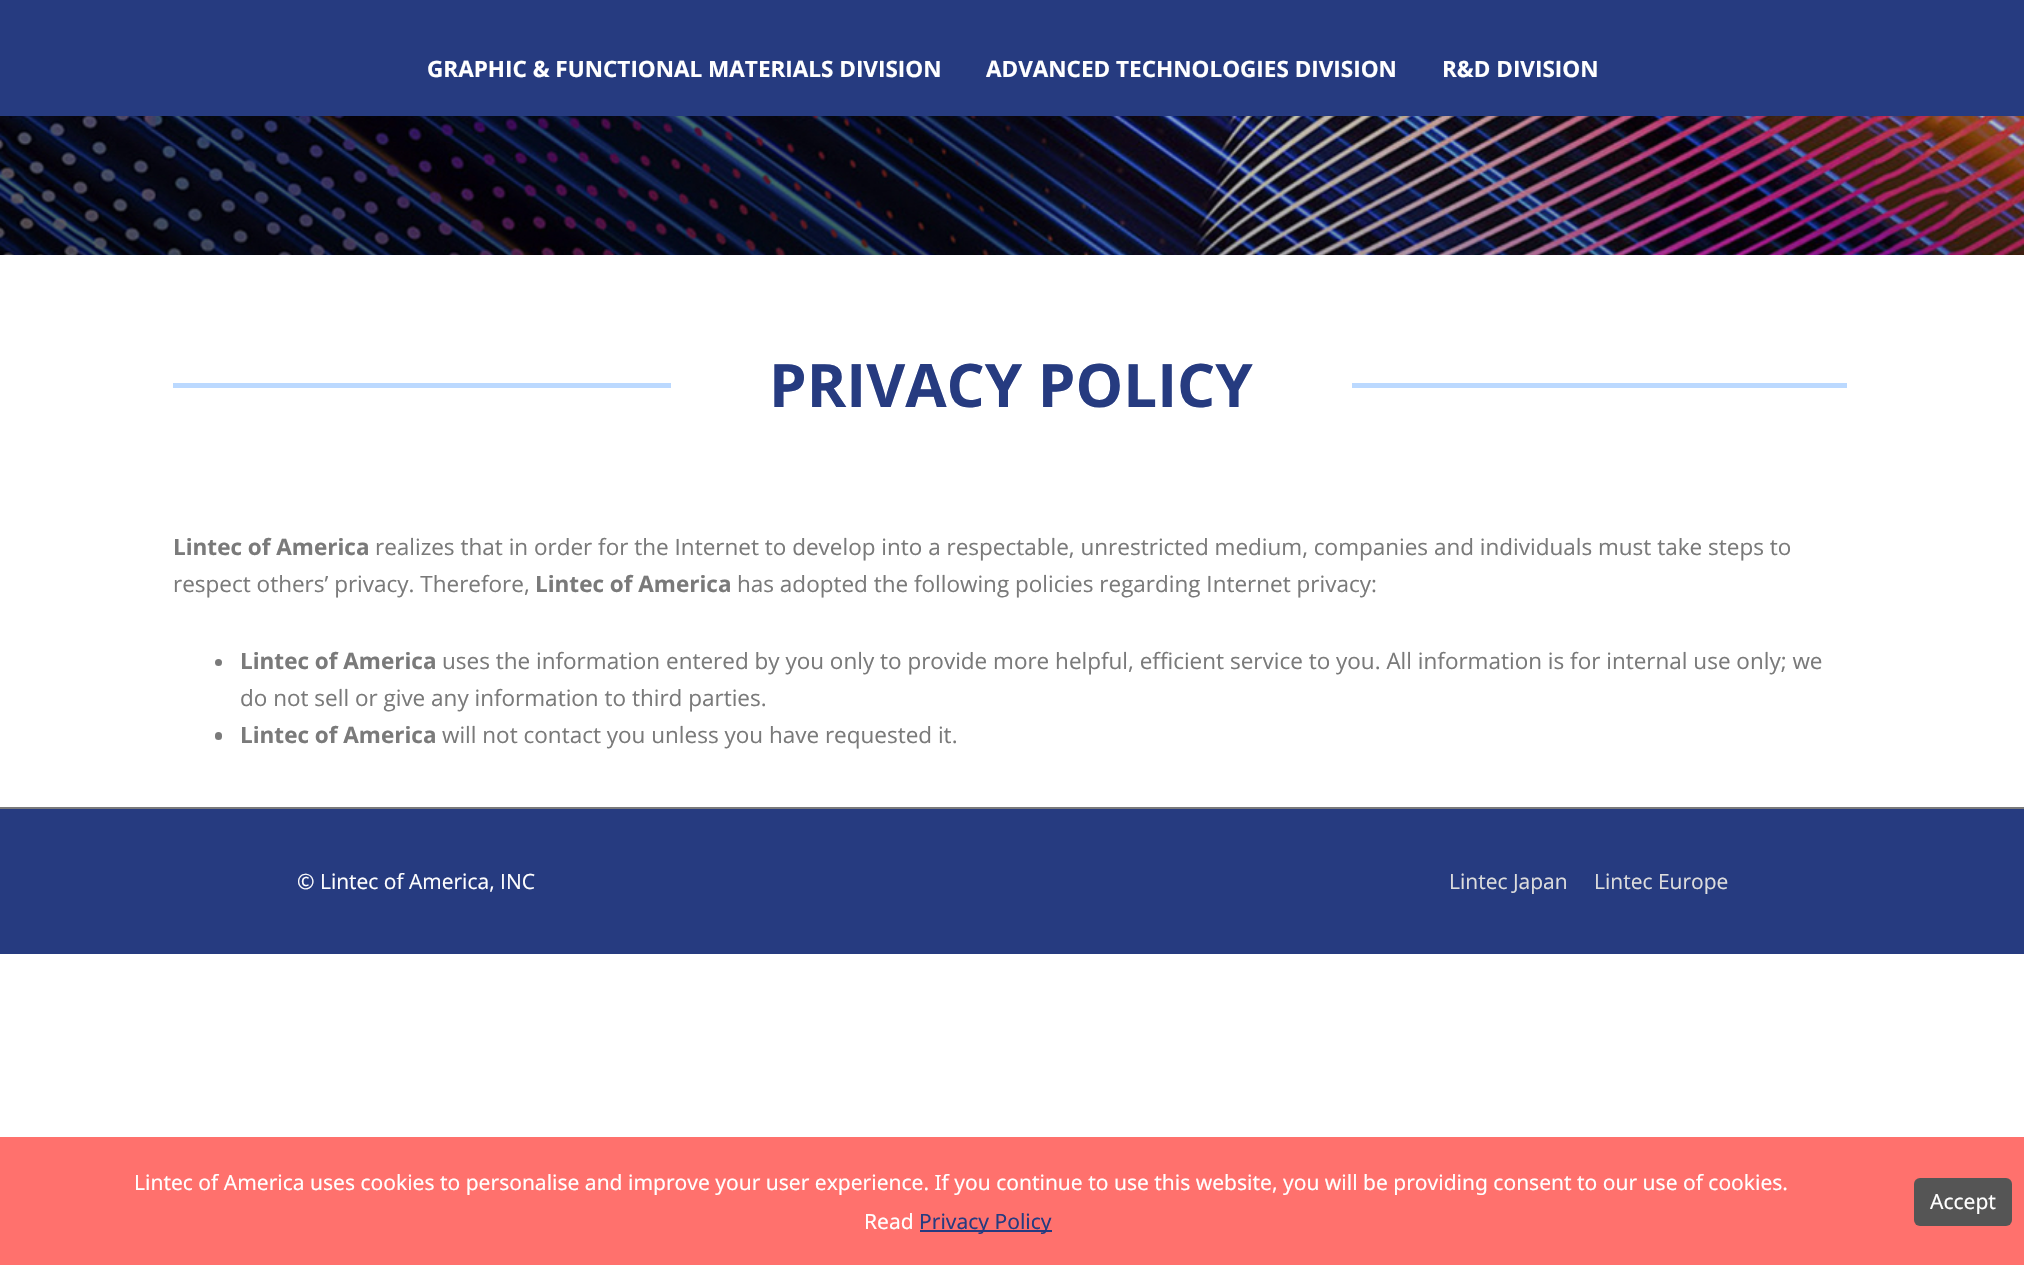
#include "include/core/SkBlurTypes.h"
#include "include/core/SkCanvas.h"
#include "include/core/SkData.h"
#include "include/core/SkFont.h"
#include "include/core/SkFontMgr.h"
#include "include/core/SkImage.h"
#include "include/core/SkMaskFilter.h"
#include "include/core/SkPaint.h"
#include "include/core/SkPathBuilder.h"
#include "include/core/SkTextBlob.h"
#include "include/effects/SkDashPathEffect.h"
#include "include/effects/SkGradientShader.h"
#include "include/utils/SkParsePath.h"

extern sk_sp<SkFontMgr> fontMgr;

void draw(SkCanvas* canvas) {
    SkPaint p;
    p.setAntiAlias(true);
    auto font = [&](const char* family, int weight, float size, bool italic = false) {
        SkFontStyle style(weight, SkFontStyle::kNormal_Width,
            italic ? SkFontStyle::kItalic_Slant : SkFontStyle::kUpright_Slant);
        SkFont result(fontMgr->matchFamilyStyle(family, style), size);
        result.setSubpixel(true);
        return result;
    };
    auto drawPhoto = [&](const char* path, float l, float t, float r, float b) {
        auto image = SkImages::DeferredFromEncodedData(SkData::MakeFromFileName(path));
        canvas->drawImageRect(image, SkRect::MakeLTRB(l, t, r, b), SkSamplingOptions());
    };
    canvas->clear(0xFFFFFFFF);
    p.setColor(0xFF263B80);
    canvas->drawRect(SkRect::MakeLTRB(0, 0, 2024, 116), p);
    auto font1 = font("Open Sans", 700, 22.5f);
    p.setColor(0xFFFFFFFF);
    {
        const struct { const char* s; float x, y; } items[] = {
            {"GRAPHIC & FUNCTIONAL MATERIALS DIVISION", 427, 77},
            {"ADVANCED TECHNOLOGIES DIVISION", 986, 77},
            {"R&D DIVISION", 1442, 77},
        };
        for (auto [s, x, y] : items) {
            canvas->drawString(s, x, y, font1, p);
        }
    }
    drawPhoto("media/1.png", 0, 116, 2024, 255);
    p.setColor(0xFFBBD9FF);
    canvas->drawRect(SkRect::MakeLTRB(173, 383, 671, 388), p);
    auto font2 = font("Open Sans", 700, 60);
    p.setColor(0xFF263B80);
    canvas->drawString("PRIVACY POLICY", 769, 407, font2, p);
    p.setColor(0xFFBBD9FF);
    canvas->drawRect(SkRect::MakeLTRB(1352, 383, 1847, 388), p);
    p.setColor(0xFF7A7A7A);
    canvas->drawString("Lintec of America", 173, 555, font1, p);
    auto font3 = font("Open Sans", 400, 22.5f);
    canvas->drawString("realizes that in order for the Internet to develop into a respectable, unrestricted medium, companies and individuals must take steps to", 375, 555, font3, p);
    canvas->drawString("respect others’ privacy. Therefore,", 173, 592, font3, p);
    canvas->drawString("Lintec of America", 535, 592, font1, p);
    canvas->drawString("has adopted the following policies regarding Internet privacy:", 737, 592, font3, p);
    canvas->drawCircle(218.5f, 662.5f, 3.5f, p);
    canvas->drawString("Lintec of America", 240, 669, font1, p);
    canvas->drawString("uses the information entered by you only to provide more helpful, efficient service to you. All information is for internal use only; we", 442, 669, font3, p);
    canvas->drawString("do not sell or give any information to third parties.", 240, 706, font3, p);
    canvas->drawRoundRect(SkRect::MakeLTRB(215, 732, 222, 740), 3.5f, 3.5f, p);
    canvas->drawString("Lintec of America", 240, 743, font1, p);
    canvas->drawString("will not contact you unless you have requested it.", 442, 743, font3, p);
    canvas->drawRect(SkRect::MakeLTRB(0, 807, 2024, 809), p);
    p.setColor(0xFF263B80);
    canvas->drawRect(SkRect::MakeLTRB(0, 809, 2024, 954), p);
    auto font4 = font("Open Sans", 400, 21);
    p.setColor(0xFFFFFFFF);
    canvas->drawString("© Lintec of America, INC", 297, 889, font4, p);
    p.setColor(0xFFDDDDDD);
    canvas->drawString("Lintec Japan", 1449, 889, font4, p);
    canvas->drawString("Lintec Europe", 1594, 889, font4, p);
    p.setColor(0xFFFF716D);
    canvas->drawRect(SkRect::MakeLTRB(0, 1137, 2024, 1265), p);
    auto font5 = font("Noto Sans", 400, 21);
    p.setColor(0xFFFFFFFF);
    canvas->drawString("Lintec of America uses cookies to personalise and improve your user experience. If you continue to use this website, you will be providing consent to our use of cookies.", 134, 1190, font5, p);
    canvas->drawString("Read", 864, 1229, font5, p);
    p.setColor(0xFF263B80);
    canvas->drawRect(SkRect::MakeLTRB(920, 1230, 1052, 1232), p);
    canvas->drawString("Privacy Policy", 919, 1229, font5, p);
    p.setColor(0xFF555555);
    canvas->drawRoundRect(SkRect::MakeLTRB(1914, 1178, 2012, 1226), 6, 6, p);
    p.setColor(0xFFFFFFFF);
    canvas->drawString("Accept", 1930, 1209, font5, p);
}
